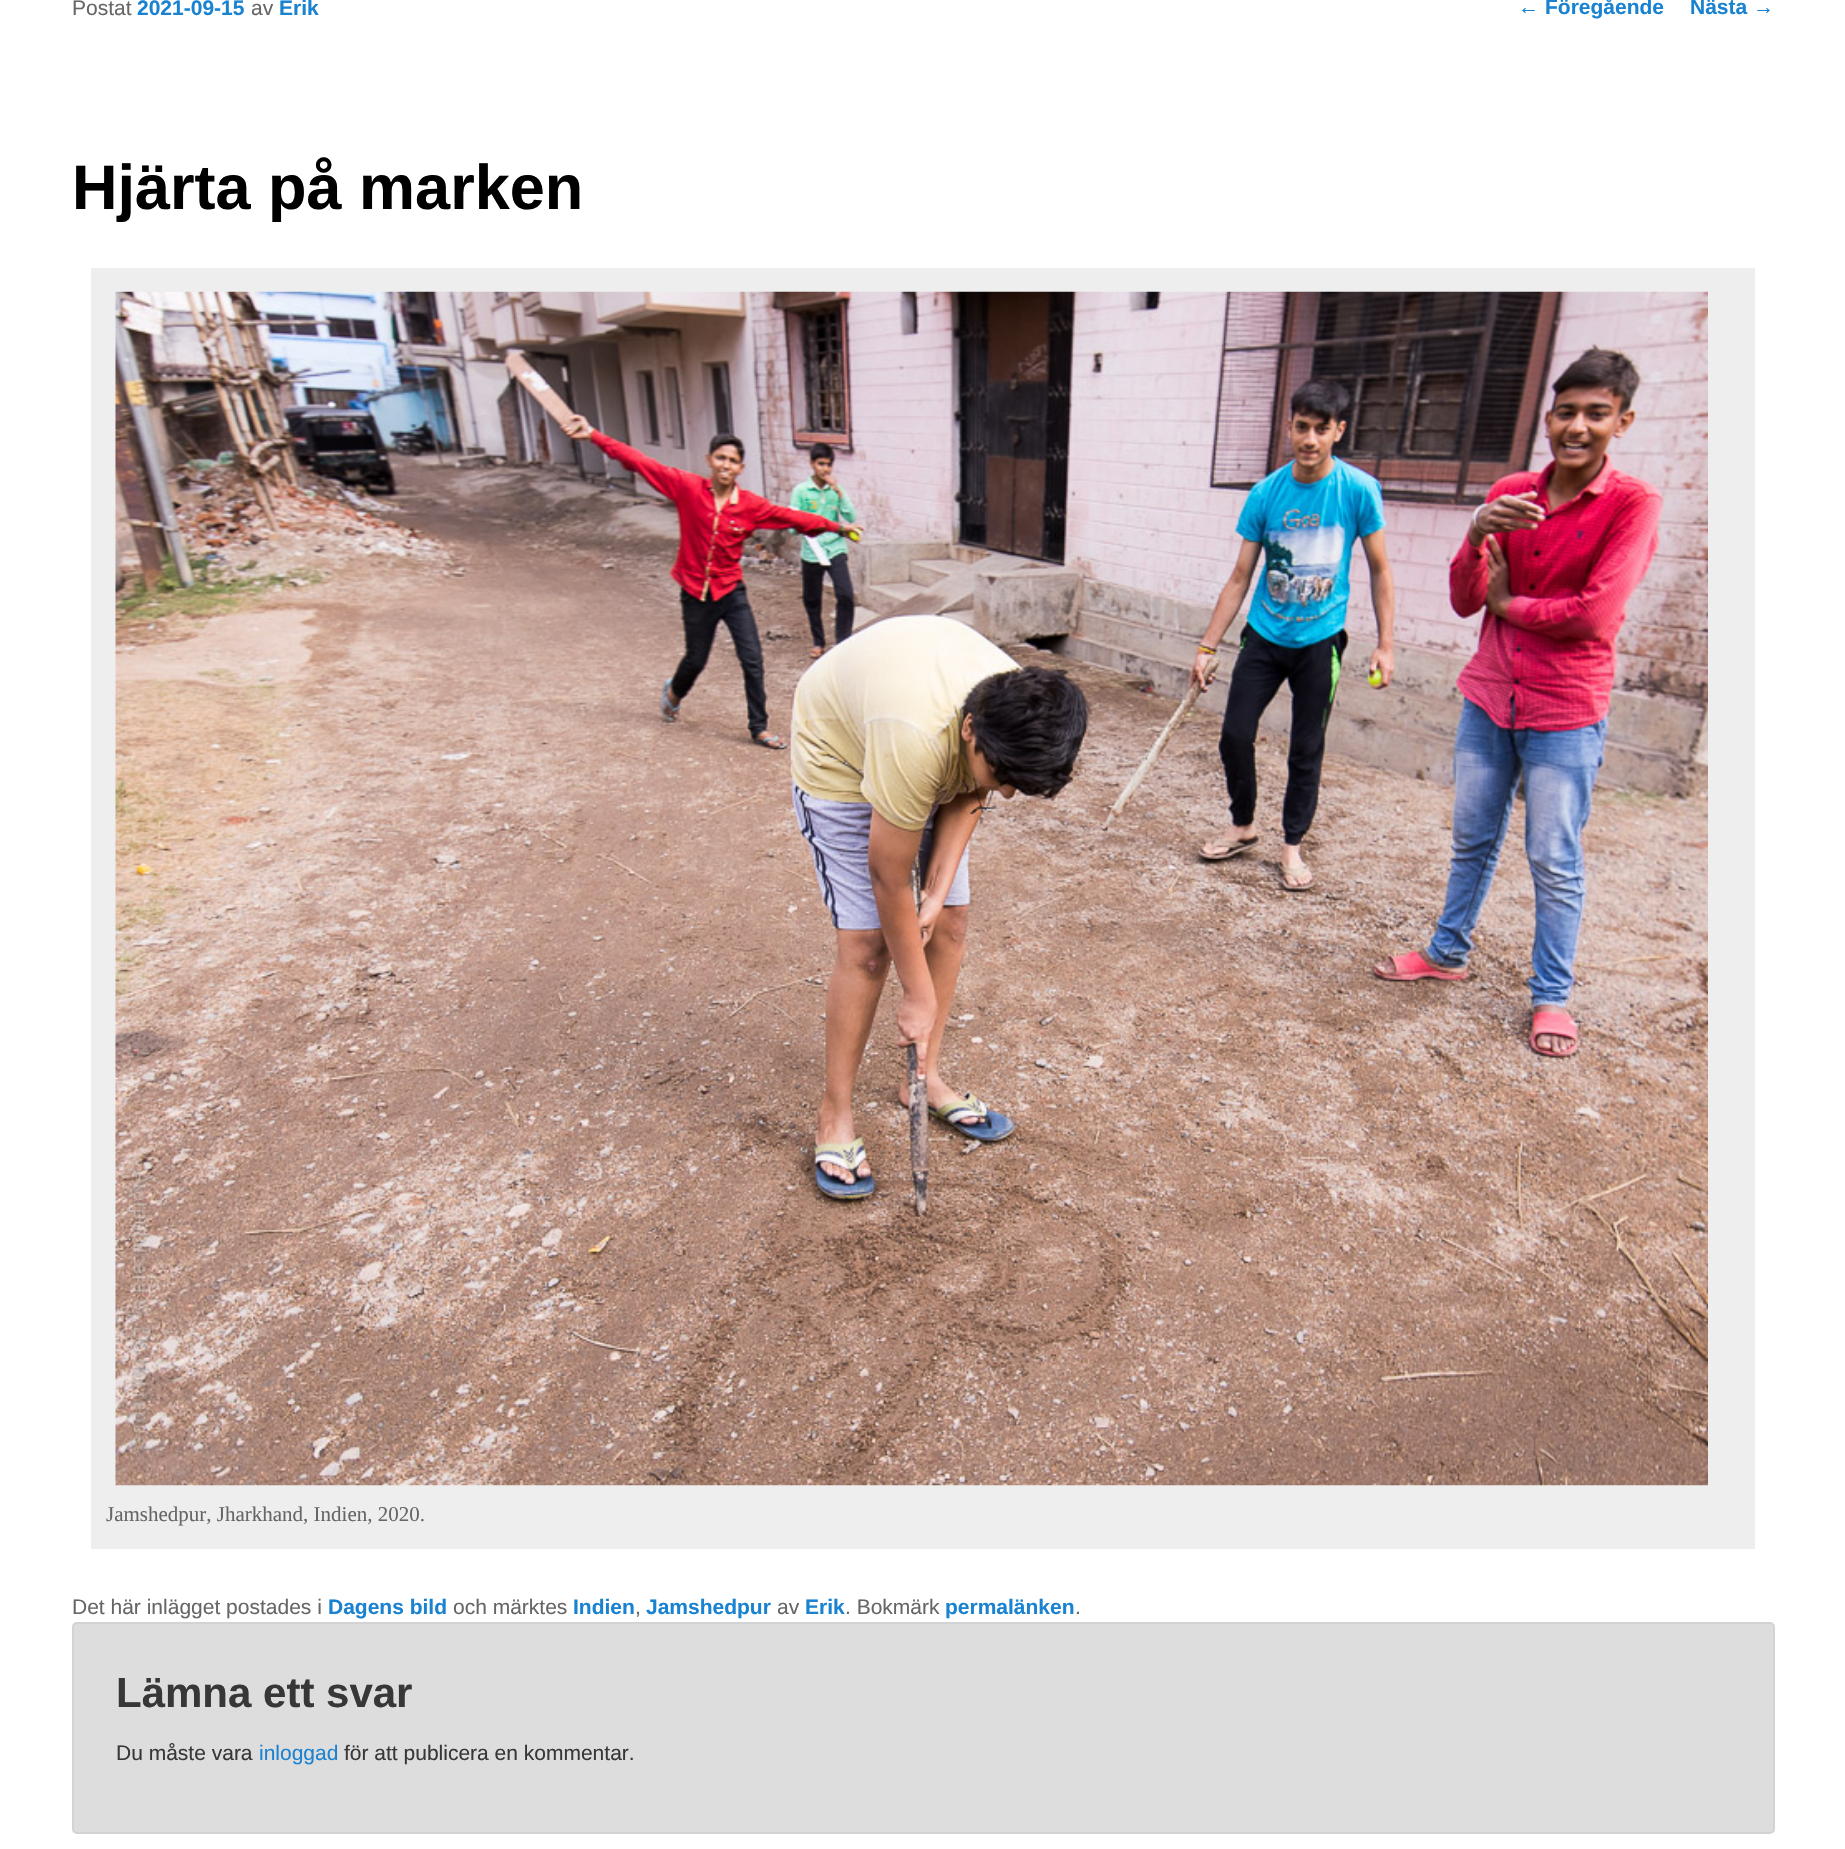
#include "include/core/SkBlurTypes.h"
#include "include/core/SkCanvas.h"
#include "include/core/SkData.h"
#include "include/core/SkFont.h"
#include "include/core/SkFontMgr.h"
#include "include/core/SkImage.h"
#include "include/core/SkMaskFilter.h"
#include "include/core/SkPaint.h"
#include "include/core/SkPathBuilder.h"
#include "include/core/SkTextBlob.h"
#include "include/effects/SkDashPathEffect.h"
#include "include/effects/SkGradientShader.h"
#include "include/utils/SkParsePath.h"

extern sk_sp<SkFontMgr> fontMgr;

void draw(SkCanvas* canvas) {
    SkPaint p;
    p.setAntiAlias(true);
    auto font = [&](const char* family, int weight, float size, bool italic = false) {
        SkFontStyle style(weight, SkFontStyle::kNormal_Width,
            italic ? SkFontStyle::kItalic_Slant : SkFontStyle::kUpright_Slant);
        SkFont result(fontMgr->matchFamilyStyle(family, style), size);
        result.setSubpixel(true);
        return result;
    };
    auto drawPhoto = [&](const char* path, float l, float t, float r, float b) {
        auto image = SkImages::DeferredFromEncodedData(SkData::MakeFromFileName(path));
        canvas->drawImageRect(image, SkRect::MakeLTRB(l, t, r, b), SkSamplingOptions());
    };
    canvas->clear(0xFFFFFFFF);
    auto font1 = font("Liberation Sans", 400, 21);
    p.setColor(0xFF666666);
    canvas->drawString("Postat", 72, 15, font1, p);
    auto font2 = font("Liberation Sans", 700, 21);
    p.setColor(0xFF1982D1);
    canvas->drawString("2021-09-15", 137, 15, font2, p);
    p.setColor(0xFF666666);
    canvas->drawString("av", 251, 15, font1, p);
    p.setColor(0xFF1982D1);
    canvas->drawString("Erik", 279, 15, font2, p);
    auto font3 = font("Liberation Sans", 700, 63);
    p.setColor(0xFF000000);
    canvas->drawString("Hjärta på marken", 72, 209, font3, p);
    p.setColor(0xFFEEEEEE);
    canvas->drawRect(SkRect::MakeLTRB(91, 268, 1755, 1549), p);
    drawPhoto("media/1.png", 115, 291, 1708, 1486);
    auto font4 = font("Liberation Serif", 400, 21);
    p.setColor(0xFF666666);
    canvas->drawString("Jamshedpur, Jharkhand, Indien, 2020.", 106, 1521, font4, p);
    canvas->drawString("Det här inlägget postades i", 72, 1614, font1, p);
    p.setColor(0xFF1982D1);
    canvas->drawString("Dagens bild", 328, 1614, font2, p);
    p.setColor(0xFF666666);
    canvas->drawString("och märktes", 453, 1614, font1, p);
    p.setColor(0xFF1982D1);
    canvas->drawString("Indien", 573, 1614, font2, p);
    p.setColor(0xFF666666);
    canvas->drawString(",", 635, 1614, font1, p);
    p.setColor(0xFF1982D1);
    canvas->drawString("Jamshedpur", 646, 1614, font2, p);
    p.setColor(0xFF666666);
    canvas->drawString("av", 777, 1614, font1, p);
    p.setColor(0xFF1982D1);
    canvas->drawString("Erik", 805, 1614, font2, p);
    p.setColor(0xFF666666);
    canvas->drawString(". Bokmärk", 845, 1614, font1, p);
    p.setColor(0xFF1982D1);
    canvas->drawString("permalänken", 945, 1614, font2, p);
    p.setColor(0xFF666666);
    canvas->drawString(".", 1075, 1614, font1, p);
    p.setColor(0xFF1982D1);
    canvas->drawString("←", 1518, 14, font1, p);
    canvas->drawString("Föregående", 1545, 14, font2, p);
    canvas->drawString("Nästa", 1690, 14, font2, p);
    canvas->drawString("→", 1753, 14, font1, p);
    p.setColor(0xFFDDDDDD);
    canvas->drawRoundRect(SkRect::MakeLTRB(73, 1623, 1774, 1833), 4, 4, p);
    p.setStyle(SkPaint::kStroke_Style);
    p.setStrokeWidth(2);
    p.setColor(0xFFD3D3D3);
    canvas->drawRoundRect(SkRect::MakeLTRB(73, 1623, 1774, 1833), 4, 4, p);
    auto font5 = font("Liberation Sans", 700, 42);
    p.setStyle(SkPaint::kFill_Style);
    p.setColor(0xFF373737);
    canvas->drawString("Lämna ett svar", 116, 1707, font5, p);
    canvas->drawString("Du måste vara", 116, 1760, font1, p);
    p.setColor(0xFF1982D1);
    canvas->drawString("inloggad", 259, 1760, font1, p);
    p.setColor(0xFF373737);
    canvas->drawString("för att publicera en kommentar.", 344, 1760, font1, p);
}
